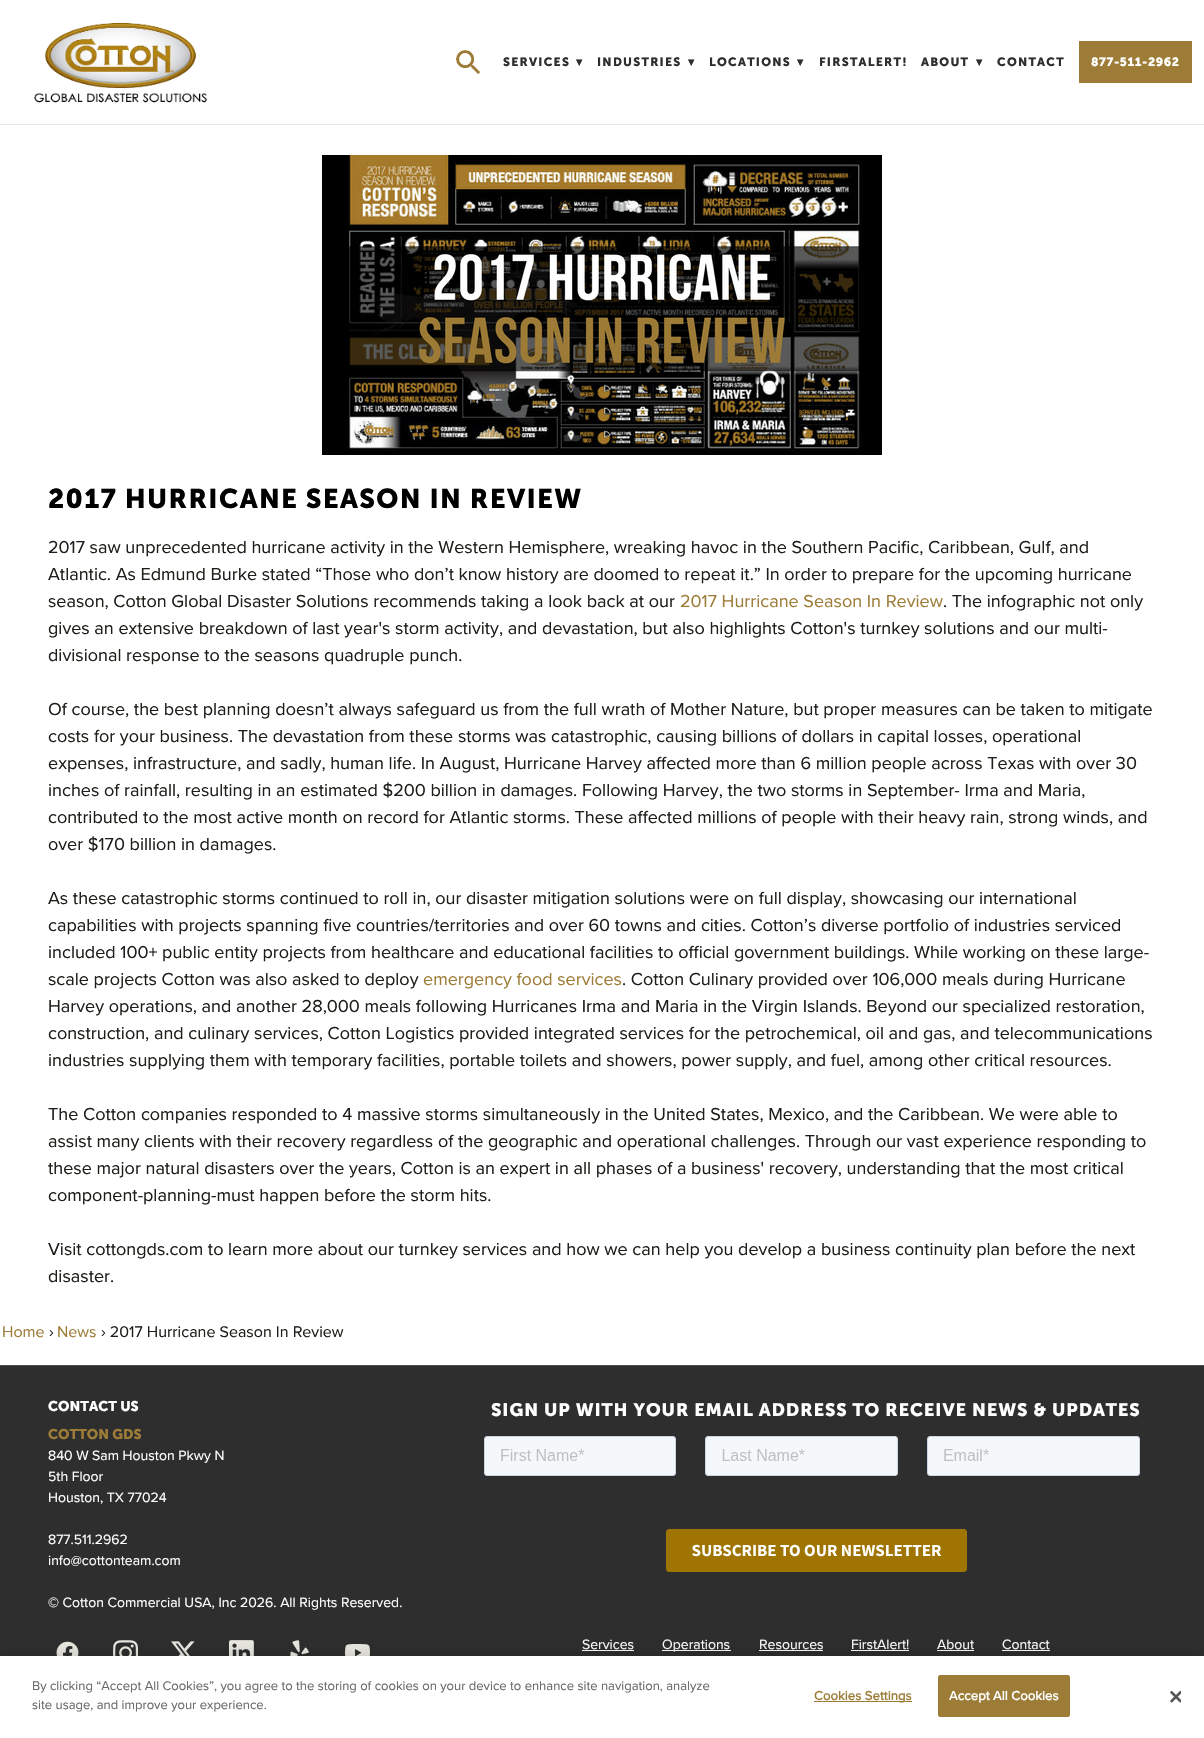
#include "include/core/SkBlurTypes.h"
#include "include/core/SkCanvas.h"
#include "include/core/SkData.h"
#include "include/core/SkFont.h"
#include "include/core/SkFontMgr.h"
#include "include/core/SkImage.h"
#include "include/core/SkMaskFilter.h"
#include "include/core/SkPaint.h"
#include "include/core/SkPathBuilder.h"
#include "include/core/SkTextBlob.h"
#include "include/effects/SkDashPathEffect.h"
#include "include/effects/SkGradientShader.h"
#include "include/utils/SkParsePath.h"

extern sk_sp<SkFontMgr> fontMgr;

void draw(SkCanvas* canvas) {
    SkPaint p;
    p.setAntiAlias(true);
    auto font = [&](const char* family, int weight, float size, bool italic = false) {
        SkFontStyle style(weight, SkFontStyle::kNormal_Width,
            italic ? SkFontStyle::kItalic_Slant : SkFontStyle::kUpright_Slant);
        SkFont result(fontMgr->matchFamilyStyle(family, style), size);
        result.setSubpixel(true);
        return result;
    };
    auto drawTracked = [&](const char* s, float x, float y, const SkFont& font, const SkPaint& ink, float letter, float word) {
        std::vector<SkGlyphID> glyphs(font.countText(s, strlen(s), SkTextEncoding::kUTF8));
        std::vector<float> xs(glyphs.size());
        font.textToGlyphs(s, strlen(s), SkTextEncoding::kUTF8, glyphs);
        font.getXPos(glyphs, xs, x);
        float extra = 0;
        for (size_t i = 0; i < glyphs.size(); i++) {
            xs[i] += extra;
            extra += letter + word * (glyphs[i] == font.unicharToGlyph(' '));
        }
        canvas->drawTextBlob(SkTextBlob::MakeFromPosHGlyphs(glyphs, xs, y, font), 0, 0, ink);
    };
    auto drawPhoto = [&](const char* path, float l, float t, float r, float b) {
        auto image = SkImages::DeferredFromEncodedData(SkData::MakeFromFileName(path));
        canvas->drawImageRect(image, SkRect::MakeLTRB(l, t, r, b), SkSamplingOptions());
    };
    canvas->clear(0xFFFFFFFF);
    p.setColor(0xFFE6E6E6);
    canvas->drawRect(SkRect::MakeLTRB(0, 124, 1204, 125), p);
    drawPhoto("media/1.png", 34, 22, 208, 103);
    drawPhoto("media/2.png", 455, 50, 480, 74);
    auto font1 = font("Museo Sans", 700, 12);
    p.setColor(0xFF2E2E2E);
    drawTracked("SERVICES", 503, 66, font1, p, 1.25f, 0);
    auto font2 = font("DejaVu Sans", 700, 12);
    drawTracked("▾", 576, 66, font2, p, 1.25f, 0);
    drawTracked("INDUSTRIES", 597, 66, font1, p, 1.25f, 0);
    drawTracked("▾", 688, 66, font2, p, 1.25f, 0);
    drawTracked("LOCATIONS", 709, 66, font1, p, 1.25f, 0);
    drawTracked("▾", 797, 66, font2, p, 1.25f, 0);
    drawTracked("FIRSTALERT!", 819, 66, font1, p, 1.25f, 0);
    drawTracked("ABOUT", 921, 66, font1, p, 1.25f, 0);
    drawTracked("▾", 976, 66, font2, p, 1.25f, 0);
    drawTracked("CONTACT", 997, 66, font1, p, 1.25f, 0);
    p.setColor(0xFF9D7C37);
    canvas->drawRect(SkRect::MakeLTRB(1079, 41, 1192, 83), p);
    p.setColor(0xFFFFFFFF);
    drawTracked("877-511-2962", 1091, 66, font1, p, 0.6f, 0);
    drawPhoto("media/3.png", 322, 155, 882, 455);
    auto font3 = font("Museo Sans", 700, 27);
    p.setColor(0xFF000000);
    drawTracked("2017 HURRICANE SEASON IN REVIEW", 48, 508, font3, p, 1.35f, 0);
    auto font4 = font("Proxima Nova", 400, 18);
    p.setColor(0xFF1F1D18);
    {
        const struct { const char* s; float x, y; } items[] = {
            {"2017 saw unprecedented hurricane activity in the Western Hemisphere, wreaking havoc in the Southern Pacific, Caribbean, Gulf, and", 48, 553},
            {"Atlantic. As Edmund Burke stated “Those who don’t know history are doomed to repeat it.” In order to prepare for the upcoming hurricane", 48, 580},
            {"season, Cotton Global Disaster Solutions recommends taking a look back at our", 48, 607},
        };
        for (auto [s, x, y] : items) {
            canvas->drawString(s, x, y, font4, p);
        }
    }
    p.setColor(0xFF9D7C37);
    canvas->drawString("2017 Hurricane Season In Review", 680, 607, font4, p);
    p.setColor(0xFF1F1D18);
    {
        const struct { const char* s; float x, y; } items[] = {
            {". The infographic not only", 943, 607},
            {"gives an extensive breakdown of last year's storm activity, and devastation, but also highlights Cotton's turnkey solutions and our multi-", 48, 634},
            {"divisional response to the seasons quadruple punch.", 48, 661},
            {"Of course, the best planning doesn’t always safeguard us from the full wrath of Mother Nature, but proper measures can be taken to mitigate", 48, 715},
            {"costs for your business. The devastation from these storms was catastrophic, causing billions of dollars in capital losses, operational", 48, 742},
            {"expenses, infrastructure, and sadly, human life. In August, Hurricane Harvey affected more than 6 million people across Texas with over 30", 48, 769},
            {"inches of rainfall, resulting in an estimated $200 billion in damages. Following Harvey, the two storms in September- Irma and Maria,", 48, 796},
            {"contributed to the most active month on record for Atlantic storms. These affected millions of people with their heavy rain, strong winds, and", 48, 823},
            {"over $170 billion in damages.", 48, 850},
            {"As these catastrophic storms continued to roll in, our disaster mitigation solutions were on full display, showcasing our international", 48, 904},
            {"capabilities with projects spanning five countries/territories and over 60 towns and cities. Cotton’s diverse portfolio of industries serviced", 48, 931},
            {"included 100+ public entity projects from healthcare and educational facilities to official government buildings. While working on these large-", 48, 958},
            {"scale projects Cotton was also asked to deploy", 48, 985},
        };
        for (auto [s, x, y] : items) {
            canvas->drawString(s, x, y, font4, p);
        }
    }
    p.setColor(0xFF9D7C37);
    canvas->drawString("emergency food services", 423, 985, font4, p);
    p.setColor(0xFF1F1D18);
    {
        const struct { const char* s; float x, y; } items[] = {
            {". Cotton Culinary provided over 106,000 meals during Hurricane", 622, 985},
            {"Harvey operations, and another 28,000 meals following Hurricanes Irma and Maria in the Virgin Islands. Beyond our specialized restoration,", 48, 1012},
            {"construction, and culinary services, Cotton Logistics provided integrated services for the petrochemical, oil and gas, and telecommunications", 48, 1039},
            {"industries supplying them with temporary facilities, portable toilets and showers, power supply, and fuel, among other critical resources.", 48, 1066},
            {"The Cotton companies responded to 4 massive storms simultaneously in the United States, Mexico, and the Caribbean. We were able to", 48, 1120},
            {"assist many clients with their recovery regardless of the geographic and operational challenges. Through our vast experience responding to", 48, 1147},
            {"these major natural disasters over the years, Cotton is an expert in all phases of a business' recovery, understanding that the most critical", 48, 1174},
            {"component-planning-must happen before the storm hits.", 48, 1201},
            {"Visit cottongds.com to learn more about our turnkey services and how we can help you develop a business continuity plan before the next", 48, 1255},
            {"disaster.", 48, 1282},
        };
        for (auto [s, x, y] : items) {
            canvas->drawString(s, x, y, font4, p);
        }
    }
    auto font5 = font("Proxima Nova", 400, 16);
    p.setColor(0xFF9D7C37);
    canvas->drawString("Home", 2, 1337, font5, p);
    p.setColor(0xFF1F1D18);
    canvas->drawString("›", 49, 1337, font5, p);
    p.setColor(0xFF9D7C37);
    canvas->drawString("News", 57, 1337, font5, p);
    p.setColor(0xFF1F1D18);
    canvas->drawString("› 2017 Hurricane Season In Review", 101, 1337, font5, p);
    p.setColor(0xFF2E2E2E);
    canvas->drawRect(SkRect::MakeLTRB(0, 1366, 1204, 1656), p);
    p.setColor(0xFF504F49);
    canvas->drawRect(SkRect::MakeLTRB(0, 1365, 1204, 1366), p);
    auto font6 = font("Museo Sans", 700, 14);
    p.setColor(0xFFFFFFFF);
    canvas->drawString("CONTACT US", 48, 1411, font6, p);
    p.setColor(0xFF9D7C37);
    canvas->drawString("COTTON GDS", 48, 1439, font6, p);
    auto font7 = font("Proxima Nova", 400, 14);
    p.setColor(0xFFFFFFFF);
    {
        const struct { const char* s; float x, y; } items[] = {
            {"840 W Sam Houston Pkwy N", 48, 1460},
            {"5th Floor", 48, 1481},
            {"Houston, TX 77024", 48, 1502},
            {"877.511.2962", 48, 1544},
            {"info@cottonteam.com", 48, 1565},
            {"© Cotton Commercial USA, Inc 2026. All Rights Reserved.", 48, 1607},
        };
        for (auto [s, x, y] : items) {
            canvas->drawString(s, x, y, font7, p);
        }
    }
    auto font8 = font("Museo Sans", 700, 18);
    drawTracked("SIGN UP WITH YOUR EMAIL ADDRESS TO RECEIVE NEWS & UPDATES", 491, 1416, font8, p, 0.9f, 0);
    drawPhoto("media/4.png", 484, 1436, 1140, 1572);
    drawPhoto("media/5.png", 56, 1641, 79, 1656);
    drawPhoto("media/6.png", 113, 1640, 139, 1656);
    drawPhoto("media/7.png", 171, 1641, 195, 1656);
    drawPhoto("media/8.png", 229, 1640, 254, 1656);
    drawPhoto("media/9.png", 290, 1640, 309, 1656);
    drawPhoto("media/10.png", 345, 1644, 370, 1656);
    canvas->drawString("Services", 582, 1649, font7, p);
    canvas->drawRect(SkRect::MakeLTRB(582, 1650, 634, 1651), p);
    canvas->drawRect(SkRect::MakeLTRB(662, 1650, 731, 1651), p);
    canvas->drawString("Operations", 662, 1649, font7, p);
    canvas->drawString("Resources", 759, 1649, font7, p);
    canvas->drawRect(SkRect::MakeLTRB(759, 1650, 823, 1651), p);
    canvas->drawString("FirstAlert!", 851, 1649, font7, p);
    canvas->drawRect(SkRect::MakeLTRB(851, 1650, 909, 1651), p);
    canvas->drawString("About", 937, 1649, font7, p);
    canvas->drawRect(SkRect::MakeLTRB(937, 1650, 974, 1651), p);
    canvas->drawString("Contact", 1002, 1649, font7, p);
    canvas->drawRect(SkRect::MakeLTRB(1002, 1650, 1050, 1651), p);
    p.setColor(0x33000000);
    p.setMaskFilter(SkMaskFilter::MakeBlur(kNormal_SkBlurStyle, 9));
    canvas->drawRect(SkRect::MakeLTRB(0, 1656, 1204, 1738), p);
    p.setMaskFilter(nullptr);
    p.setColor(0xFFFFFFFF);
    canvas->drawRect(SkRect::MakeLTRB(0, 1656, 1204, 1738), p);
    auto font9 = font("Proxima Nova", 400, 13);
    p.setColor(0xFF696969);
    canvas->drawString("By clicking “Accept All Cookies”, you agree to the storing of cookies on your device to enhance site navigation, analyze", 32, 1690, font9, p);
    canvas->drawString("site usage, and improve your experience.", 32, 1709, font9, p);
    p.setColor(0xFF9D7C37);
    canvas->drawRect(SkRect::MakeLTRB(814, 1701, 912, 1702), p);
    auto font10 = font("Proxima Nova", 700, 13);
    drawTracked("Cookies Settings", 814, 1700, font10, p, 0.1f, 0);
    canvas->drawRoundRect(SkRect::MakeLTRB(938.5f, 1675.5f, 1069.5f, 1716.5f), 1.5f, 1.5f, p);
    p.setStyle(SkPaint::kStroke_Style);
    p.setStrokeWidth(1);
    canvas->drawRoundRect(SkRect::MakeLTRB(938.5f, 1675.5f, 1069.5f, 1716.5f), 1.5f, 1.5f, p);
    p.setStyle(SkPaint::kFill_Style);
    p.setColor(0xFFFFFFFF);
    drawTracked("Accept All Cookies", 949, 1700, font10, p, 0.1f, 0);
    drawPhoto("media/11.png", 1170, 1691, 1181, 1703);
}
